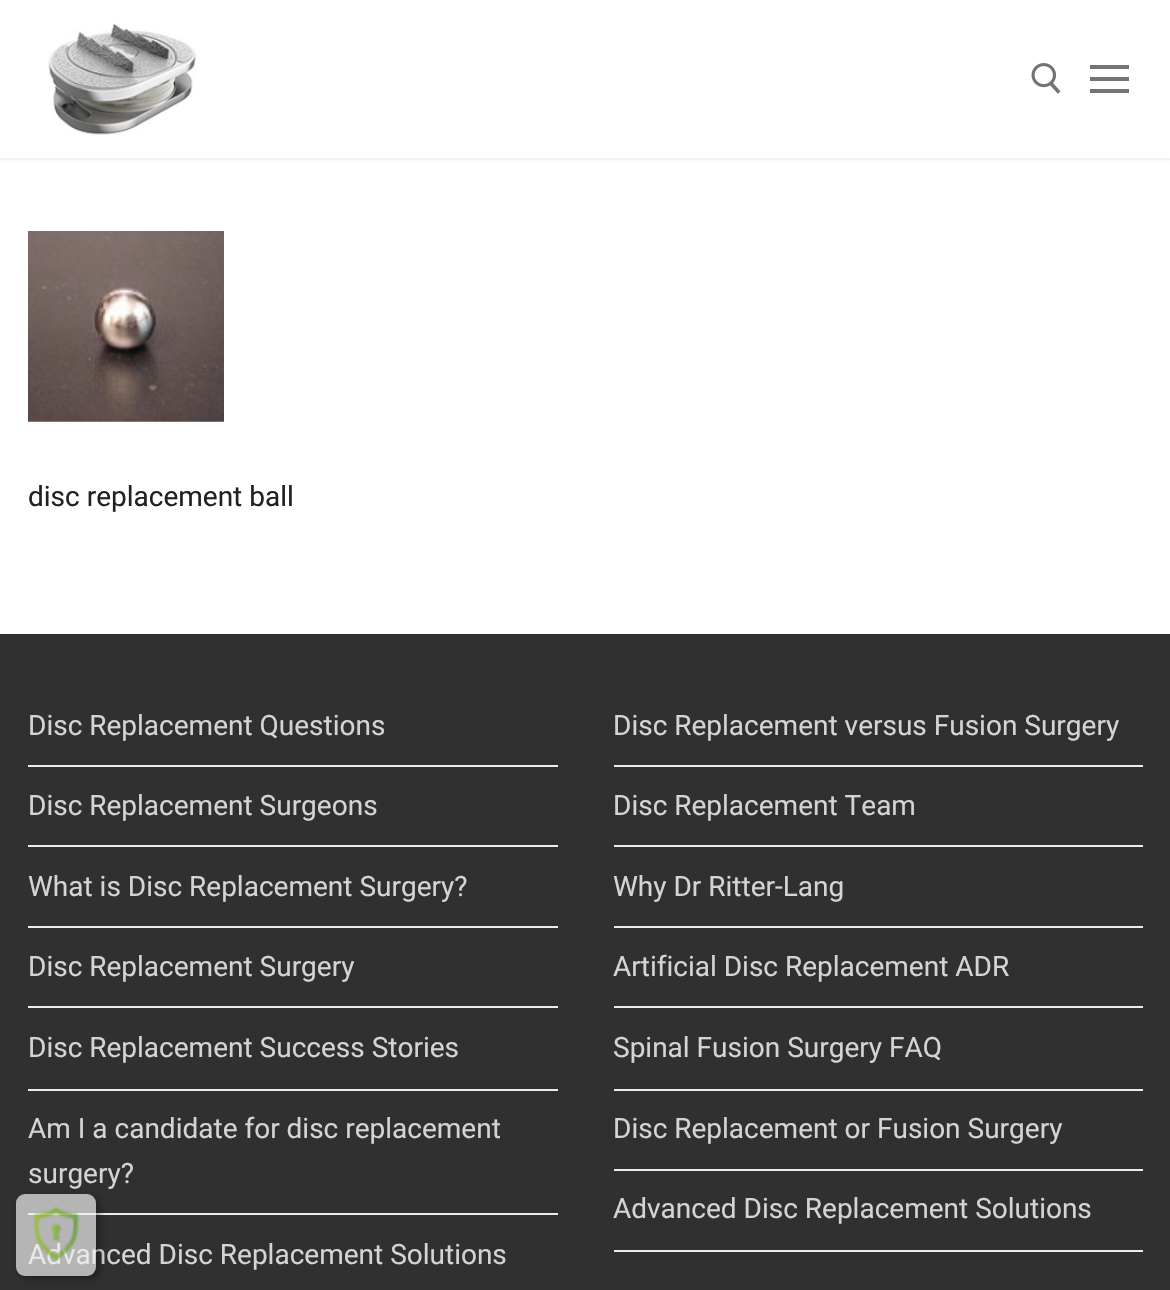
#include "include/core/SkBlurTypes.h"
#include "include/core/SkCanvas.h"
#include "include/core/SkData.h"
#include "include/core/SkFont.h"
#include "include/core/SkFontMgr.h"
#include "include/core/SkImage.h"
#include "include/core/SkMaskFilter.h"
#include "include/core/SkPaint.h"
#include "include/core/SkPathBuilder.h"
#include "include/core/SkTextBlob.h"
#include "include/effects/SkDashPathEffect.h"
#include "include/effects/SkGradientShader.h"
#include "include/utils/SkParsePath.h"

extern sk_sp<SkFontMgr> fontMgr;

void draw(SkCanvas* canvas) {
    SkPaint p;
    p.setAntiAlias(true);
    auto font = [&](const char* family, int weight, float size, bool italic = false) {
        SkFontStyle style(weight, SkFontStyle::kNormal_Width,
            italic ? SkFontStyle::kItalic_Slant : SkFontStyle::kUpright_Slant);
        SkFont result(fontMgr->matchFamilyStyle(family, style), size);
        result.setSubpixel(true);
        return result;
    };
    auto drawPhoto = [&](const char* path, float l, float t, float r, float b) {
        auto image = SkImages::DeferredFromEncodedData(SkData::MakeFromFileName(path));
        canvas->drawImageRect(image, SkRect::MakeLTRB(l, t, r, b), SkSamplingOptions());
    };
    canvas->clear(0xFFFFFFFF);
    p.setColor(0xFFE1E5EA);
    p.setMaskFilter(SkMaskFilter::MakeBlur(kNormal_SkBlurStyle, 2));
    canvas->drawRect(SkRect::MakeLTRB(0, 2, 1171, 159), p);
    p.setMaskFilter(nullptr);
    p.setColor(0xFFFFFFFF);
    canvas->drawRect(SkRect::MakeLTRB(0, 0, 1170, 158), p);
    drawPhoto("media/1.png", 48, 23, 197, 135);
    drawPhoto("media/2.png", 1031, 63, 1061, 94);
    {
        const struct { float l, t, r, b; SkColor color; } items[] = {
            {1090, 77, 1129, 81, 0xFF737373},
            {1090, 65, 1129, 69, 0xFF737373},
            {1090, 89, 1129, 93, 0xFF737373},
        };
        for (auto [l, t, r, b, color] : items) {
            p.setColor(color);
            canvas->drawRect(SkRect::MakeLTRB(l, t, r, b), p);
        }
    }
    drawPhoto("media/3.png", 28, 231, 224, 422);
    auto font1 = font("Roboto", 400, 28);
    p.setColor(0xFF212121);
    canvas->drawString("disc replacement ball", 28, 506, font1, p);
    p.setColor(0xFF303030);
    canvas->drawRect(SkRect::MakeLTRB(0, 634, 1170, 1290), p);
    p.setColor(0xFFEAECEE);
    canvas->drawRect(SkRect::MakeLTRB(28, 765, 558, 767), p);
    p.setColor(0xFFD4D4D4);
    canvas->drawString("Disc Replacement Questions", 28, 735, font1, p);
    p.setColor(0xFFEAECEE);
    canvas->drawRect(SkRect::MakeLTRB(28, 845, 558, 847), p);
    p.setColor(0xFFD4D4D4);
    canvas->drawString("Disc Replacement Surgeons", 28, 815, font1, p);
    p.setColor(0xFFEAECEE);
    canvas->drawRect(SkRect::MakeLTRB(28, 926, 558, 928), p);
    p.setColor(0xFFD4D4D4);
    canvas->drawString("What is Disc Replacement Surgery?", 28, 896, font1, p);
    p.setColor(0xFFEAECEE);
    canvas->drawRect(SkRect::MakeLTRB(28, 1006, 558, 1008), p);
    p.setColor(0xFFD4D4D4);
    canvas->drawString("Disc Replacement Surgery", 28, 976, font1, p);
    p.setColor(0xFFEAECEE);
    canvas->drawRect(SkRect::MakeLTRB(28, 1089, 558, 1091), p);
    p.setColor(0xFFD4D4D4);
    canvas->drawString("Disc Replacement Success Stories", 28, 1057, font1, p);
    p.setColor(0xFFEAECEE);
    canvas->drawRect(SkRect::MakeLTRB(28, 1213, 558, 1215), p);
    p.setColor(0xFFD4D4D4);
    {
        const struct { const char* s; float x, y; } items[] = {
            {"Am I a candidate for disc replacement", 28, 1138},
            {"surgery?", 28, 1183},
            {"Advanced Disc Replacement Solutions", 28, 1264},
        };
        for (auto [s, x, y] : items) {
            canvas->drawString(s, x, y, font1, p);
        }
    }
    p.setColor(0xFFEAECEE);
    canvas->drawRect(SkRect::MakeLTRB(614, 765, 1143, 767), p);
    p.setColor(0xFFD4D4D4);
    canvas->drawString("Disc Replacement versus Fusion Surgery", 613, 735, font1, p);
    p.setColor(0xFFEAECEE);
    canvas->drawRect(SkRect::MakeLTRB(614, 845, 1143, 847), p);
    p.setColor(0xFFD4D4D4);
    canvas->drawString("Disc Replacement Team", 613, 815, font1, p);
    p.setColor(0xFFEAECEE);
    canvas->drawRect(SkRect::MakeLTRB(614, 926, 1143, 928), p);
    p.setColor(0xFFD4D4D4);
    canvas->drawString("Why Dr Ritter-Lang", 613, 896, font1, p);
    p.setColor(0xFFEAECEE);
    canvas->drawRect(SkRect::MakeLTRB(614, 1006, 1143, 1008), p);
    p.setColor(0xFFD4D4D4);
    canvas->drawString("Artificial Disc Replacement ADR", 613, 976, font1, p);
    p.setColor(0xFFEAECEE);
    canvas->drawRect(SkRect::MakeLTRB(614, 1089, 1143, 1091), p);
    p.setColor(0xFFD4D4D4);
    canvas->drawString("Spinal Fusion Surgery FAQ", 613, 1057, font1, p);
    p.setColor(0xFFEAECEE);
    canvas->drawRect(SkRect::MakeLTRB(614, 1169, 1143, 1171), p);
    p.setColor(0xFFD4D4D4);
    canvas->drawString("Disc Replacement or Fusion Surgery", 613, 1138, font1, p);
    p.setColor(0xFFEAECEE);
    canvas->drawRect(SkRect::MakeLTRB(614, 1250, 1143, 1252), p);
    p.setColor(0xFFD4D4D4);
    canvas->drawString("Advanced Disc Replacement Solutions", 613, 1218, font1, p);
    canvas->save();
    canvas->clipPath(SkPathBuilder(SkPathFillType::kEvenOdd).moveTo(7, 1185).lineTo(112, 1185).lineTo(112, 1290).lineTo(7, 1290).close().moveTo(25, 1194).lineTo(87, 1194).cubicTo(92, 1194, 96, 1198, 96, 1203).lineTo(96, 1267).cubicTo(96, 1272, 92, 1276, 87, 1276).lineTo(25, 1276).cubicTo(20, 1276, 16, 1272, 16, 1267).lineTo(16, 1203).cubicTo(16, 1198, 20, 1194, 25, 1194).close().detach(), true);
    p.setColor(0x54000000);
    p.setMaskFilter(SkMaskFilter::MakeBlur(kNormal_SkBlurStyle, 3.5f));
    canvas->drawRoundRect(SkRect::MakeLTRB(19, 1197, 100, 1279), 9, 9, p);
    p.setMaskFilter(nullptr);
    canvas->restore();
    p.setColor(0xB0F1F1F1);
    canvas->drawRoundRect(SkRect::MakeLTRB(16, 1194, 96, 1276), 9, 9, p);
    drawPhoto("media/4.png", 33, 1206, 80, 1261);
}
